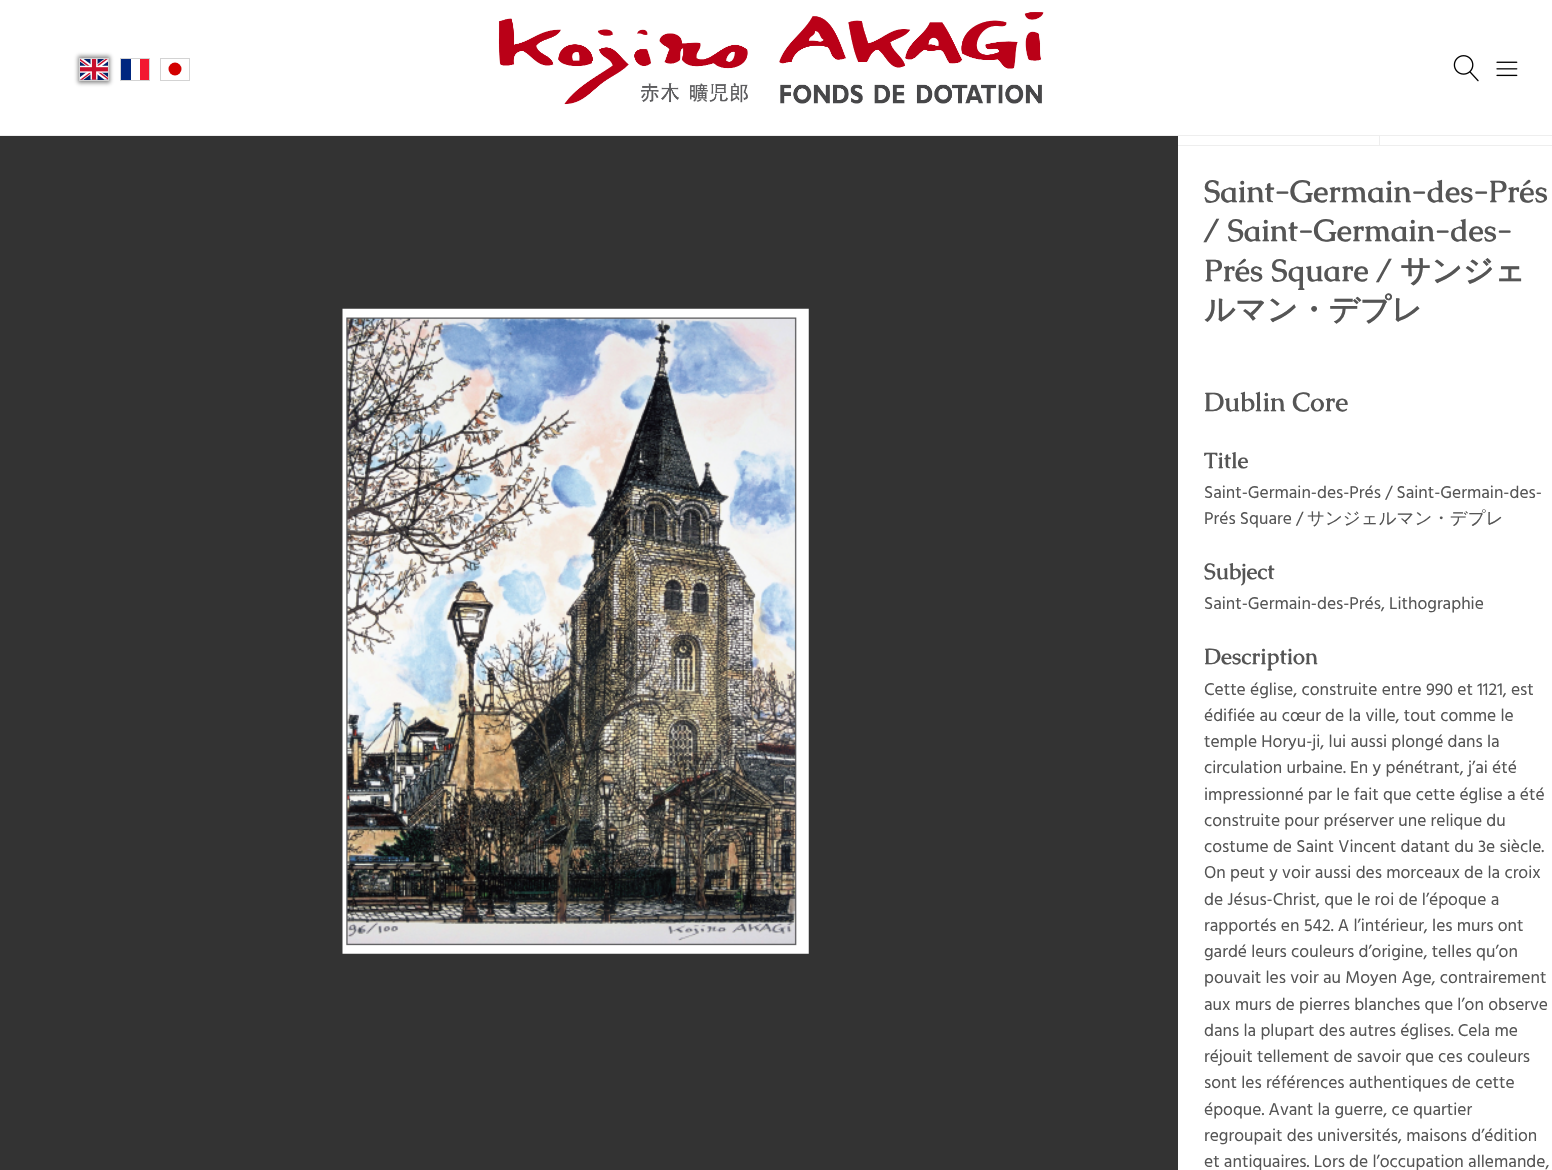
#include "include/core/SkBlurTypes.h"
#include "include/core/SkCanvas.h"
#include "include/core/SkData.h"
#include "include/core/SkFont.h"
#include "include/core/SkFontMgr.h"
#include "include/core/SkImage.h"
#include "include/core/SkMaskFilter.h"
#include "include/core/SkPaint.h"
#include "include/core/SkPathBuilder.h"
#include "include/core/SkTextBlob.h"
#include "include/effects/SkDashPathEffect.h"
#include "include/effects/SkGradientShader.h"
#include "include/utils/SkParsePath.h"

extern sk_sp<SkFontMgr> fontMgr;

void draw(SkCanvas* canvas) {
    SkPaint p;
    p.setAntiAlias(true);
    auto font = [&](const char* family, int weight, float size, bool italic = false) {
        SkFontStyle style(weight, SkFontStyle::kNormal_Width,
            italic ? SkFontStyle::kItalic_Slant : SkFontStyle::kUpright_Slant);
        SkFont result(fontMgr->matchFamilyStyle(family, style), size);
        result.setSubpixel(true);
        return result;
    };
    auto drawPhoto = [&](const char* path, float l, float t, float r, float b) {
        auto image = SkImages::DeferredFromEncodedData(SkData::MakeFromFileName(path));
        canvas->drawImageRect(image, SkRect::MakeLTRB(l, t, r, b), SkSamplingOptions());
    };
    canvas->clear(0xFFFFFFFF);
    p.setColor(0xE6808080);
    p.setMaskFilter(SkMaskFilter::MakeBlur(kNormal_SkBlurStyle, 2));
    canvas->drawRect(SkRect::MakeLTRB(78, 56, 110, 83), p);
    p.setMaskFilter(nullptr);
    drawPhoto("media/1.png", 80, 59, 108, 80);
    p.setStyle(SkPaint::kStroke_Style);
    p.setStrokeWidth(1);
    p.setColor(0xFFD3D3D3);
    canvas->drawRect(SkRect::MakeLTRB(79.5f, 58.5f, 108.5f, 80.5f), p);
    p.setStyle(SkPaint::kFill_Style);
    p.setColor(0xFF00267F);
    canvas->drawRect(SkRect::MakeLTRB(121, 59, 131, 80), p);
    p.setColor(0xFFF31830);
    canvas->drawRect(SkRect::MakeLTRB(140, 59, 149, 80), p);
    p.setStyle(SkPaint::kStroke_Style);
    p.setColor(0xFFD3D3D3);
    canvas->drawRect(SkRect::MakeLTRB(120.5f, 58.5f, 149.5f, 80.5f), p);
    p.setStyle(SkPaint::kFill_Style);
    p.setColor(0xFFD30000);
    canvas->drawCircle(175, 69, 6.5f, p);
    p.setStyle(SkPaint::kStroke_Style);
    p.setColor(0xFFD3D3D3);
    canvas->drawRect(SkRect::MakeLTRB(160.5f, 58.5f, 189.5f, 80.5f), p);
    drawPhoto("media/2.png", 498, 12, 1044, 105);
    drawPhoto("media/3.png", 1453, 55, 1479, 82);
    drawPhoto("media/4.png", 1496, 61, 1518, 77);
    p.setStyle(SkPaint::kFill_Style);
    p.setColor(0xFFEEEEEE);
    canvas->drawRect(SkRect::MakeLTRB(0, 135, 1552, 136), p);
    p.setColor(0xFF333333);
    canvas->drawRect(SkRect::MakeLTRB(0, 136, 1178, 1170), p);
    drawPhoto("media/5.png", 342, 308, 809, 954);
    p.setColor(0xFFEEEEEE);
    canvas->drawRect(SkRect::MakeLTRB(1178, 145, 1552, 146), p);
    canvas->drawRect(SkRect::MakeLTRB(1379, 136, 1380, 145), p);
    auto font1 = font("Caudex", 700, 30.6f);
    p.setColor(0xFF555555);
    {
        const struct { const char* s; float x, y; } items[] = {
            {"Saint-Germain-des-Prés", 1204, 202},
            {"/ Saint-Germain-des-", 1204, 241},
            {"Prés Square /", 1204, 281},
        };
        for (auto [s, x, y] : items) {
            canvas->drawString(s, x, y, font1, p);
        }
    }
    auto font2 = font("WenQuanYi Zen Hei", 700, 30.6f);
    canvas->drawString("サンジェ", 1400, 281, font2, p);
    canvas->drawString("ルマン・デプレ", 1204, 320, font2, p);
    auto font3 = font("Caudex", 700, 26.25f);
    canvas->drawString("Dublin Core", 1204, 411, font3, p);
    auto font4 = font("Caudex", 700, 22);
    canvas->drawString("Title", 1204, 468, font4, p);
    auto font5 = font("Hind", 400, 17.5f);
    canvas->drawString("Saint-Germain-des-Prés / Saint-Germain-des-", 1204, 498, font5, p);
    canvas->drawString("Prés Square /", 1204, 524, font5, p);
    auto font6 = font("WenQuanYi Zen Hei", 500, 17.5f);
    canvas->drawString("サンジェルマン・デプレ", 1307, 524, font6, p);
    canvas->drawString("Subject", 1204, 579, font4, p);
    canvas->drawString("Saint-Germain-des-Prés, Lithographie", 1204, 609, font5, p);
    canvas->drawString("Description", 1204, 664, font4, p);
    {
        const struct { const char* s; float x, y; } items[] = {
            {"Cette église, construite entre 990 et 1121, est", 1204, 695},
            {"édifiée au cœur de la ville, tout comme le", 1204, 721},
            {"temple Horyu-ji, lui aussi plongé dans la", 1204, 747},
            {"circulation urbaine. En y pénétrant, j’ai été", 1204, 773},
            {"impressionné par le fait que cette église a été", 1204, 800},
            {"construite pour préserver une relique du", 1204, 826},
            {"costume de Saint Vincent datant du 3e siècle.", 1204, 852},
            {"On peut y voir aussi des morceaux de la croix", 1204, 878},
            {"de Jésus-Christ, que le roi de l’époque a", 1204, 905},
            {"rapportés en 542. A l’intérieur, les murs ont", 1204, 931},
            {"gardé leurs couleurs d’origine, telles qu’on", 1204, 957},
            {"pouvait les voir au Moyen Age, contrairement", 1204, 983},
            {"aux murs de pierres blanches que l’on observe", 1204, 1010},
            {"dans la plupart des autres églises. Cela me", 1204, 1036},
            {"réjouit tellement de savoir que ces couleurs", 1204, 1062},
            {"sont les références authentiques de cette", 1204, 1088},
            {"époque. Avant la guerre, ce quartier", 1204, 1115},
            {"regroupait des universités, maisons d’édition", 1204, 1141},
            {"et antiquaires. Lors de l’occupation allemande,", 1204, 1167},
        };
        for (auto [s, x, y] : items) {
            canvas->drawString(s, x, y, font5, p);
        }
    }
}
